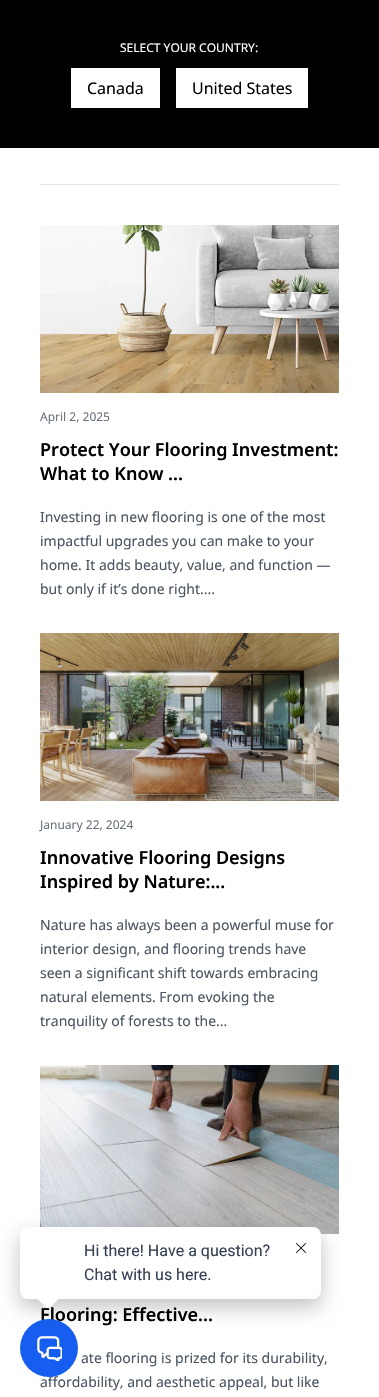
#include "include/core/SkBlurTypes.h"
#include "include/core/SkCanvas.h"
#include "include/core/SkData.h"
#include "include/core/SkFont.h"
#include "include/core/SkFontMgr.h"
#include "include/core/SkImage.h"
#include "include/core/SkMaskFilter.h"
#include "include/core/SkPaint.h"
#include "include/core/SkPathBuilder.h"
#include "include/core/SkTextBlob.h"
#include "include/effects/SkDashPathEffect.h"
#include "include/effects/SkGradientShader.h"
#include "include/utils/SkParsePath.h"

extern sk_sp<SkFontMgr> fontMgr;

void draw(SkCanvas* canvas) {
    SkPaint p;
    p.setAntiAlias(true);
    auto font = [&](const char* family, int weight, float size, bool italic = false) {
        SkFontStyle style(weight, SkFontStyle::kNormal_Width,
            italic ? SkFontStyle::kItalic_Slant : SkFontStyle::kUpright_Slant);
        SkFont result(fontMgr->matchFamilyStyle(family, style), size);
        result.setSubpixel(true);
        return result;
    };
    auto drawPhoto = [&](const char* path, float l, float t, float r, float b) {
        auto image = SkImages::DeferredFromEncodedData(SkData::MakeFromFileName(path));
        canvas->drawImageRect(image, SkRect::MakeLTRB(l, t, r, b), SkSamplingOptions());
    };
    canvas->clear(0xFFFFFFFF);
    p.setColor(0xFF000000);
    canvas->drawRect(SkRect::MakeLTRB(0, 0, 379, 148), p);
    auto font1 = font("Noto Sans", 400, 12);
    p.setColor(0xFFFFFFFF);
    canvas->drawString("SELECT YOUR COUNTRY:", 120, 52, font1, p);
    canvas->drawRect(SkRect::MakeLTRB(71, 68, 160, 108), p);
    auto font2 = font("Noto Sans", 400, 16);
    p.setColor(0xFF000000);
    canvas->drawString("Canada", 87, 94, font2, p);
    p.setColor(0xFFFFFFFF);
    canvas->drawRect(SkRect::MakeLTRB(176, 68, 308, 108), p);
    p.setColor(0xFF000000);
    canvas->drawString("United States", 192, 94, font2, p);
    p.setColor(0xFFE5E7EB);
    canvas->drawRect(SkRect::MakeLTRB(40, 184, 339, 185), p);
    drawPhoto("media/1.png", 40, 225, 339, 393);
    p.setColor(0xFF6B7280);
    canvas->drawString("April 2, 2025", 40, 421, font1, p);
    auto font3 = font("Noto Sans", 600, 18);
    p.setColor(0xFF000000);
    canvas->drawString("Protect Your Flooring Investment:", 40, 456, font3, p);
    canvas->drawString("What to Know ...", 40, 480, font3, p);
    auto font4 = font("Noto Sans", 400, 14);
    p.setColor(0xFF4B5563);
    {
        const struct { const char* s; float x, y; } items[] = {
            {"Investing in new flooring is one of the most", 40, 522},
            {"impactful upgrades you can make to your", 40, 546},
            {"home. It adds beauty, value, and function —", 40, 570},
            {"but only if it’s done right....", 40, 594},
        };
        for (auto [s, x, y] : items) {
            canvas->drawString(s, x, y, font4, p);
        }
    }
    drawPhoto("media/2.png", 40, 633, 339, 801);
    p.setColor(0xFF6B7280);
    canvas->drawString("January 22, 2024", 40, 829, font1, p);
    p.setColor(0xFF000000);
    canvas->drawString("Innovative Flooring Designs", 40, 864, font3, p);
    canvas->drawString("Inspired by Nature:...", 40, 888, font3, p);
    p.setColor(0xFF4B5563);
    {
        const struct { const char* s; float x, y; } items[] = {
            {"Nature has always been a powerful muse for", 40, 930},
            {"interior design, and flooring trends have", 40, 954},
            {"seen a significant shift towards embracing", 40, 978},
            {"natural elements. From evoking the", 40, 1002},
            {"tranquility of forests to the...", 40, 1026},
        };
        for (auto [s, x, y] : items) {
            canvas->drawString(s, x, y, font4, p);
        }
    }
    drawPhoto("media/3.png", 40, 1065, 339, 1234);
    p.setColor(0xFF000000);
    canvas->drawString("Flooring: Effective...", 40, 1321, font3, p);
    p.setColor(0xFF4B5563);
    canvas->drawString("ate flooring is prized for its durability,", 81, 1363, font4, p);
    canvas->drawString("affordability, and aesthetic appeal, but like", 40, 1387, font4, p);
    p.setColor(0xFF155EEF);
    canvas->drawCircle(49, 1348, 29, p);
    drawPhoto("media/5.png", 37, 1336, 62, 1361);
    p.setColor(0x3D000000);
    p.setMaskFilter(SkMaskFilter::MakeBlur(kNormal_SkBlurStyle, 10));
    canvas->drawRoundRect(SkRect::MakeLTRB(20, 1235, 321, 1307), 8, 8, p);
    p.setMaskFilter(nullptr);
    p.setColor(0xFFFFFFFF);
    canvas->drawRoundRect(SkRect::MakeLTRB(20, 1227, 321, 1299), 8, 8, p);
    auto font5 = font("Roboto", 400, 16);
    p.setColor(0xFF344054);
    canvas->drawString("Hi there! Have a question?", 84, 1256, font5, p);
    canvas->drawString("Chat with us here.", 84, 1280, font5, p);
    p.setColor(0xFFFFFFFF);
    canvas->drawPath(SkPathBuilder().moveTo(51, 1283.5f).lineTo(59.5f, 1292).cubicTo(61, 1293.5f, 61, 1296.5f, 59.5f, 1298).lineTo(51, 1306.5f).cubicTo(49.5f, 1308, 46.5f, 1308, 45, 1306.5f).lineTo(36.5f, 1298).cubicTo(35, 1296.5f, 35, 1293.5f, 36.5f, 1292).lineTo(45, 1283.5f).cubicTo(46.5f, 1282, 49.5f, 1282, 51, 1283.5f).close().detach(), p);
    drawPhoto("media/4.png", 296, 1243, 306, 1253);
}
